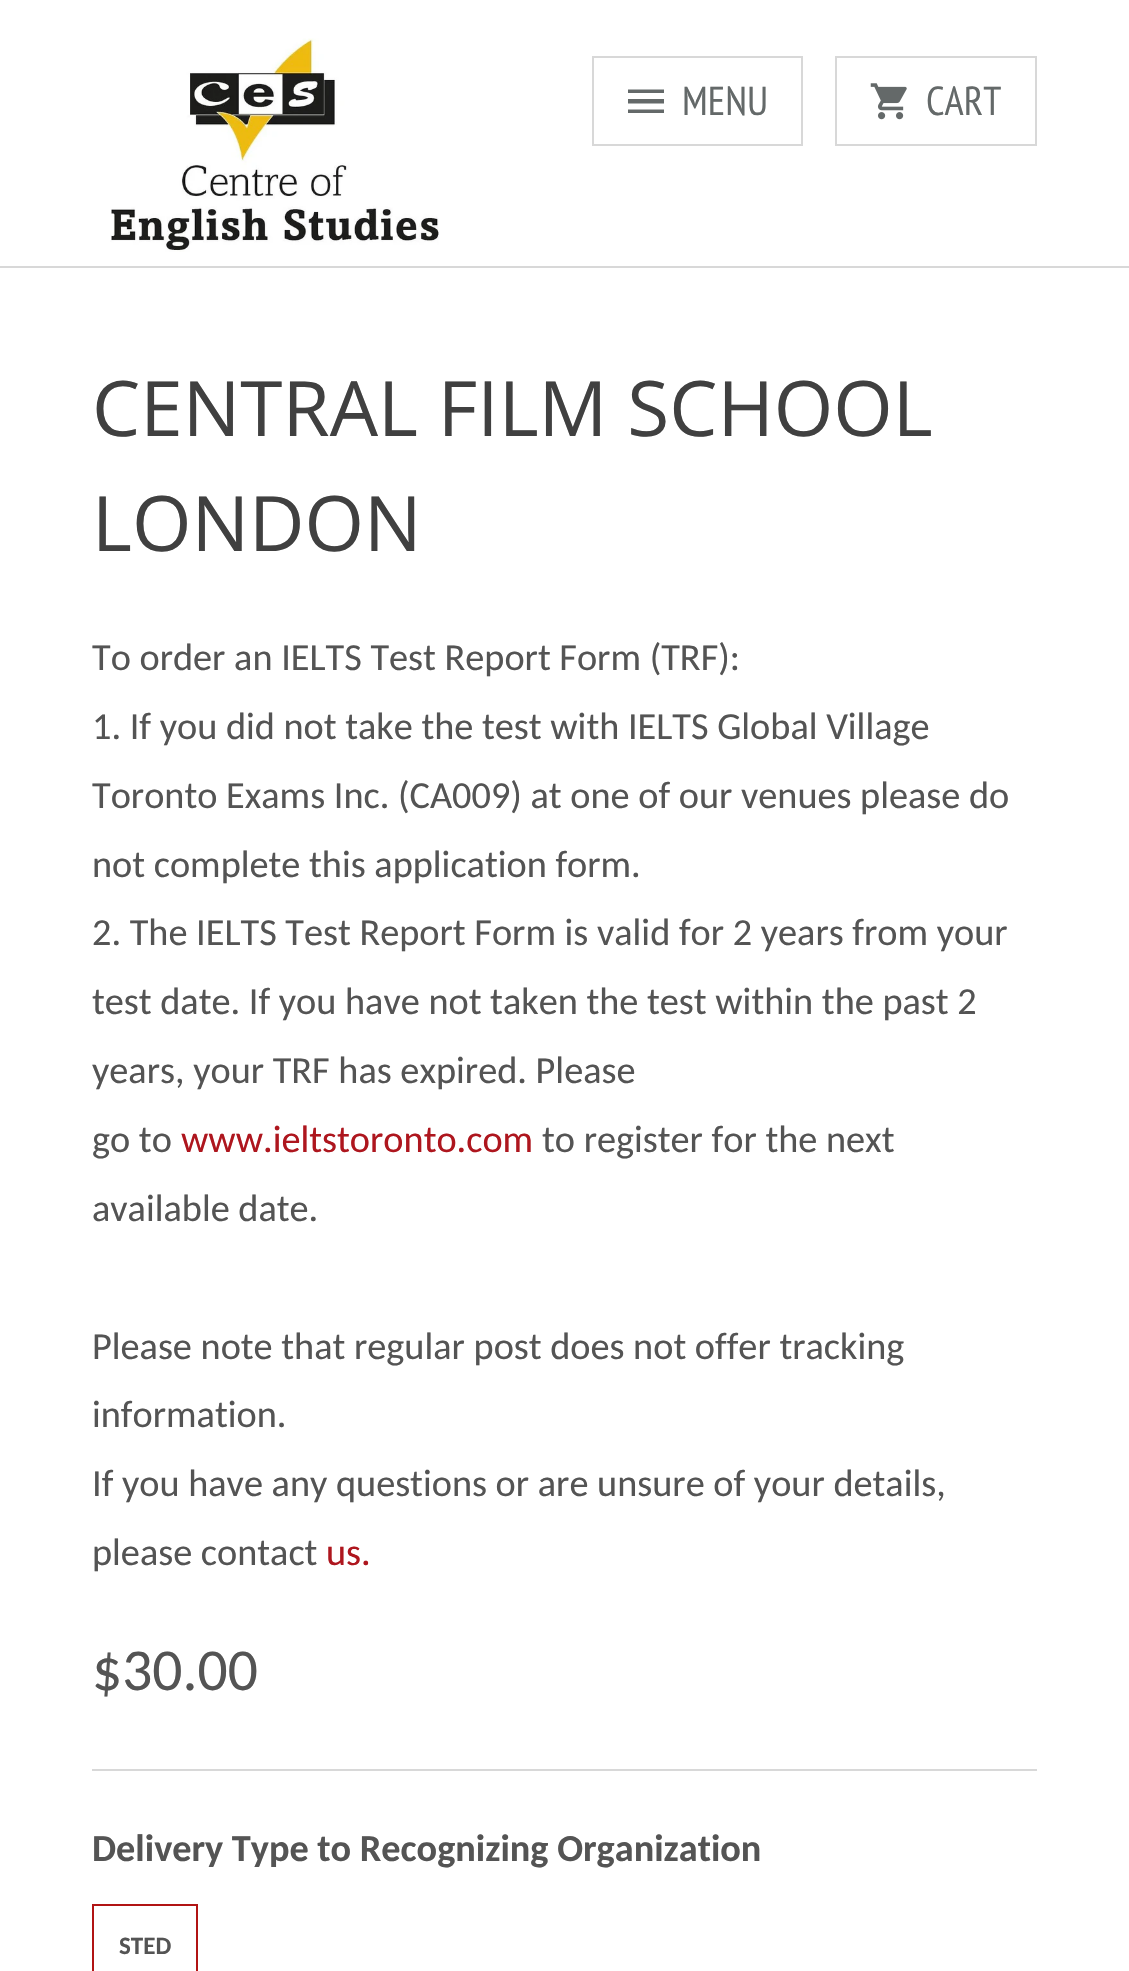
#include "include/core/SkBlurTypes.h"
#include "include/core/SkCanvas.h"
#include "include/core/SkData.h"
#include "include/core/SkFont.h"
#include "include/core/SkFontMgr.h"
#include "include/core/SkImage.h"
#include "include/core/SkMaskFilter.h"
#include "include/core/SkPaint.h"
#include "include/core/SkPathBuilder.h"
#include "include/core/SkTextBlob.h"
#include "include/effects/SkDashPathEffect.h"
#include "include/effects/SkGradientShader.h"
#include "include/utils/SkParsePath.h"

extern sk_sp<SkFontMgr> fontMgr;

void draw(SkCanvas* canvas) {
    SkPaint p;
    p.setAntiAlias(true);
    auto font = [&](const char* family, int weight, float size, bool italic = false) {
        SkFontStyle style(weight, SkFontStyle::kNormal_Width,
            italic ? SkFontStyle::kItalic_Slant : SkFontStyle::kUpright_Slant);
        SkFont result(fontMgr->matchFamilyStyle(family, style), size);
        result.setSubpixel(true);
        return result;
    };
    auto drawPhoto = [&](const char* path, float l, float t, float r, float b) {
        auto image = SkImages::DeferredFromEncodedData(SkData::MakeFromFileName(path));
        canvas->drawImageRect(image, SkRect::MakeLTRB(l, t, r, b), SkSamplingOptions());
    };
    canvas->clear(0xFFFFFFFF);
    p.setColor(0xFFD8D8D8);
    canvas->drawRect(SkRect::MakeLTRB(0, 266, 1129, 268), p);
    drawPhoto("media/1.png", 110, 38, 439, 252);
    p.setStyle(SkPaint::kStroke_Style);
    p.setStrokeWidth(2);
    canvas->drawRect(SkRect::MakeLTRB(593, 57, 802, 145), p);
    p.setStyle(SkPaint::kFill_Style);
    p.setColor(0xFF646969);
    canvas->drawPath(SkPathBuilder().moveTo(628, 113).lineTo(664, 113).lineTo(664, 109.5f).lineTo(628, 109.5f).close().moveTo(628, 103.5f).lineTo(664, 103.5f).lineTo(664, 99).lineTo(628, 99).close().moveTo(628, 89.5f).lineTo(628, 93).lineTo(664, 93).lineTo(664, 89.5f).close().detach(), p);
    auto font1 = font("PT Sans Narrow", 400, 40.5f);
    canvas->drawString("MENU", 682, 115, font1, p);
    p.setStyle(SkPaint::kStroke_Style);
    p.setColor(0xFFD8D8D8);
    canvas->drawRect(SkRect::MakeLTRB(836, 57, 1036, 145), p);
    drawPhoto("media/2.png", 870, 83, 907, 120);
    p.setStyle(SkPaint::kFill_Style);
    p.setColor(0xFF646969);
    canvas->drawString("CART", 926, 115, font1, p);
    auto font2 = font("Open Sans", 400, 76.5f);
    p.setColor(0xFF404040);
    canvas->drawString("CENTRAL FILM SCHOOL", 92, 436, font2, p);
    canvas->drawString("LONDON", 92, 551, font2, p);
    auto font3 = font("Carlito", 400, 38.25f);
    p.setColor(0xFF545454);
    {
        const struct { const char* s; float x, y; } items[] = {
            {"To order an IELTS Test Report Form (TRF):", 92, 670},
            {"1. If you did not take the test with IELTS Global Village", 92, 739},
            {"Toronto Exams Inc. (CA009) at one of our venues please do", 92, 808},
            {"not complete this application form.", 92, 877},
            {"2. The IELTS Test Report Form is valid for 2 years from your", 92, 945},
            {"test date. If you have not taken the test within the past 2", 92, 1014},
            {"years, your TRF has expired. Please", 92, 1083},
            {"go to", 92, 1152},
        };
        for (auto [s, x, y] : items) {
            canvas->drawString(s, x, y, font3, p);
        }
    }
    p.setColor(0xFFAE161E);
    canvas->drawString("www.ieltstoronto.com", 181, 1152, font3, p);
    p.setColor(0xFF545454);
    {
        const struct { const char* s; float x, y; } items[] = {
            {"to register for the next", 542, 1152},
            {"available date.", 92, 1221},
            {"Please note that regular post does not offer tracking", 92, 1359},
            {"information.", 92, 1427},
            {"If you have any questions or are unsure of your details,", 92, 1496},
            {"please contact", 92, 1565},
        };
        for (auto [s, x, y] : items) {
            canvas->drawString(s, x, y, font3, p);
        }
    }
    p.setColor(0xFFAE161E);
    canvas->drawString("us.", 326, 1565, font3, p);
    auto font4 = font("Carlito", 400, 59.5f);
    p.setColor(0xFF545454);
    canvas->drawString("$30.00", 92, 1690, font4, p);
    p.setColor(0xFFD8D8D8);
    canvas->drawRect(SkRect::MakeLTRB(92, 1769, 1037, 1771), p);
    auto font5 = font("Carlito", 700, 38.25f);
    p.setColor(0xFF545454);
    canvas->drawString("Delivery Type to Recognizing Organization", 92, 1861, font5, p);
    p.setStyle(SkPaint::kStroke_Style);
    p.setColor(0xFFB11414);
    canvas->drawRect(SkRect::MakeLTRB(93, 1905, 197, 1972), p);
    auto font6 = font("Carlito", 700, 25);
    p.setStyle(SkPaint::kFill_Style);
    p.setColor(0xFF545454);
    canvas->drawString("STED", 119, 1954, font6, p);
}
